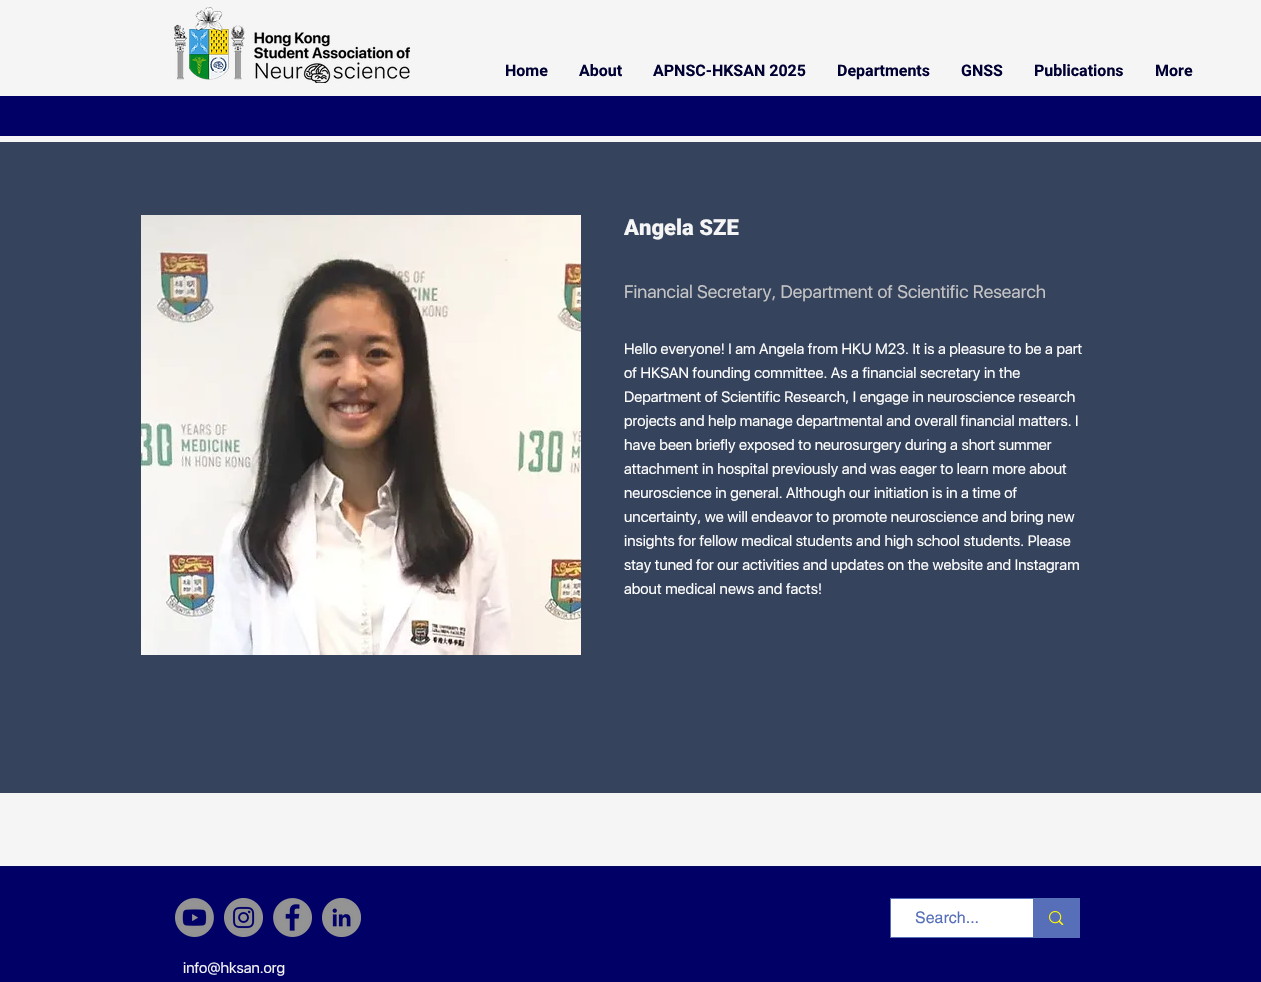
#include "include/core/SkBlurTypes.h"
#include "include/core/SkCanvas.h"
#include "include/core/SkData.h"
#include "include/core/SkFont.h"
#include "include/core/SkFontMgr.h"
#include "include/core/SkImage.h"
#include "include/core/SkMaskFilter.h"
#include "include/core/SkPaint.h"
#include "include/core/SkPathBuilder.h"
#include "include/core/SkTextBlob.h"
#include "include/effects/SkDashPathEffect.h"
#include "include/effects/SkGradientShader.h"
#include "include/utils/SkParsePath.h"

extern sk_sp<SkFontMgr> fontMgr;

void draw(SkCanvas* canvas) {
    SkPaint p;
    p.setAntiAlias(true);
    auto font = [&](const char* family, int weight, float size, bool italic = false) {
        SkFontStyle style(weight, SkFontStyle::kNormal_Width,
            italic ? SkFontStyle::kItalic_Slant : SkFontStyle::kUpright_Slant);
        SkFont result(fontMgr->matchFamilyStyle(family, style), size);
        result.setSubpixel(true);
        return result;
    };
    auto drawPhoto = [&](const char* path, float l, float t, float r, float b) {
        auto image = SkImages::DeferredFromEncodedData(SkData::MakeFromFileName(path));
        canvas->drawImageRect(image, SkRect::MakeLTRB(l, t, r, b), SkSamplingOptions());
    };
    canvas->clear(0xFFF5F5F5);
    drawPhoto("media/1.png", 174, 7, 410, 83);
    auto font1 = font("Roboto", 700, 16);
    p.setColor(0xFF000033);
    {
        const struct { const char* s; float x, y; } items[] = {
            {"Home", 505, 76},
            {"About", 579, 76},
            {"APNSC-HKSAN 2025", 653, 76},
            {"Departments", 837, 76},
            {"GNSS", 961, 76},
            {"Publications", 1034, 76},
            {"More", 1155, 76},
        };
        for (auto [s, x, y] : items) {
            canvas->drawString(s, x, y, font1, p);
        }
    }
    p.setColor(0xFF010066);
    canvas->drawRect(SkRect::MakeLTRB(0, 96, 1261, 136), p);
    p.setColor(0xFF35435D);
    canvas->drawRect(SkRect::MakeLTRB(0, 142, 1261, 793), p);
    drawPhoto("media/2.png", 141, 215, 581, 655);
    auto font2 = font("Roboto", 900, 22);
    p.setColor(0xFFF5F5F5);
    canvas->drawString("Angela SZE", 624, 235, font2, p);
    auto font3 = font("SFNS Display", 400, 18);
    p.setColor(0xFFC4C4C4);
    canvas->drawString("Financial Secretary, Department of Scientific Research", 624, 298, font3, p);
    auto font4 = font("SFNS Display", 400, 15);
    p.setColor(0xFFFFFFFF);
    {
        const struct { const char* s; float x, y; } items[] = {
            {"Hello everyone! I am Angela from HKU M23. It is a pleasure to be a part", 624, 354},
            {"of HKSAN founding committee. As a financial secretary in the", 624, 378},
            {"Department of Scientific Research, I engage in neuroscience research", 624, 402},
            {"projects and help manage departmental and overall financial matters. I", 624, 426},
            {"have been briefly exposed to neurosurgery during a short summer", 624, 450},
            {"attachment in hospital previously and was eager to learn more about", 624, 474},
            {"neuroscience in general. Although our initiation is in a time of", 624, 498},
            {"uncertainty, we will endeavor to promote neuroscience and bring new", 624, 522},
            {"insights for fellow medical students and high school students. Please", 624, 546},
            {"stay tuned for our activities and updates on the website and Instagram", 624, 570},
            {"about medical news and facts!", 624, 594},
        };
        for (auto [s, x, y] : items) {
            canvas->drawString(s, x, y, font4, p);
        }
    }
    p.setColor(0xFF010066);
    canvas->drawRect(SkRect::MakeLTRB(0, 867, 1261, 982), p);
    p.setColor(0xFF08075E);
    canvas->drawRect(SkRect::MakeLTRB(0, 866, 1261, 867), p);
    drawPhoto("media/3.png", 175, 898, 214, 937);
    drawPhoto("media/4.png", 224, 898, 263, 937);
    drawPhoto("media/5.png", 273, 898, 312, 937);
    drawPhoto("media/6.png", 322, 898, 361, 937);
    p.setStyle(SkPaint::kStroke_Style);
    p.setStrokeWidth(1);
    p.setColor(0xFF566FB8);
    canvas->drawRect(SkRect::MakeLTRB(890.5f, 898.5f, 1079.5f, 937.5f), p);
    p.setStyle(SkPaint::kFill_Style);
    p.setColor(0xFFFFFFFF);
    canvas->drawRect(SkRect::MakeLTRB(891, 899, 1033, 937), p);
    auto font5 = font("helvetica", 400, 16);
    p.setColor(0xFF566FB8);
    canvas->drawString("Search...", 915, 923, font5, p);
    canvas->drawRect(SkRect::MakeLTRB(1033, 899, 1079, 937), p);
    drawPhoto("media/7.png", 1049, 911, 1064, 925);
    p.setColor(0xFFF5F5F5);
    canvas->drawString("info@hksan.org", 183, 973, font4, p);
}
